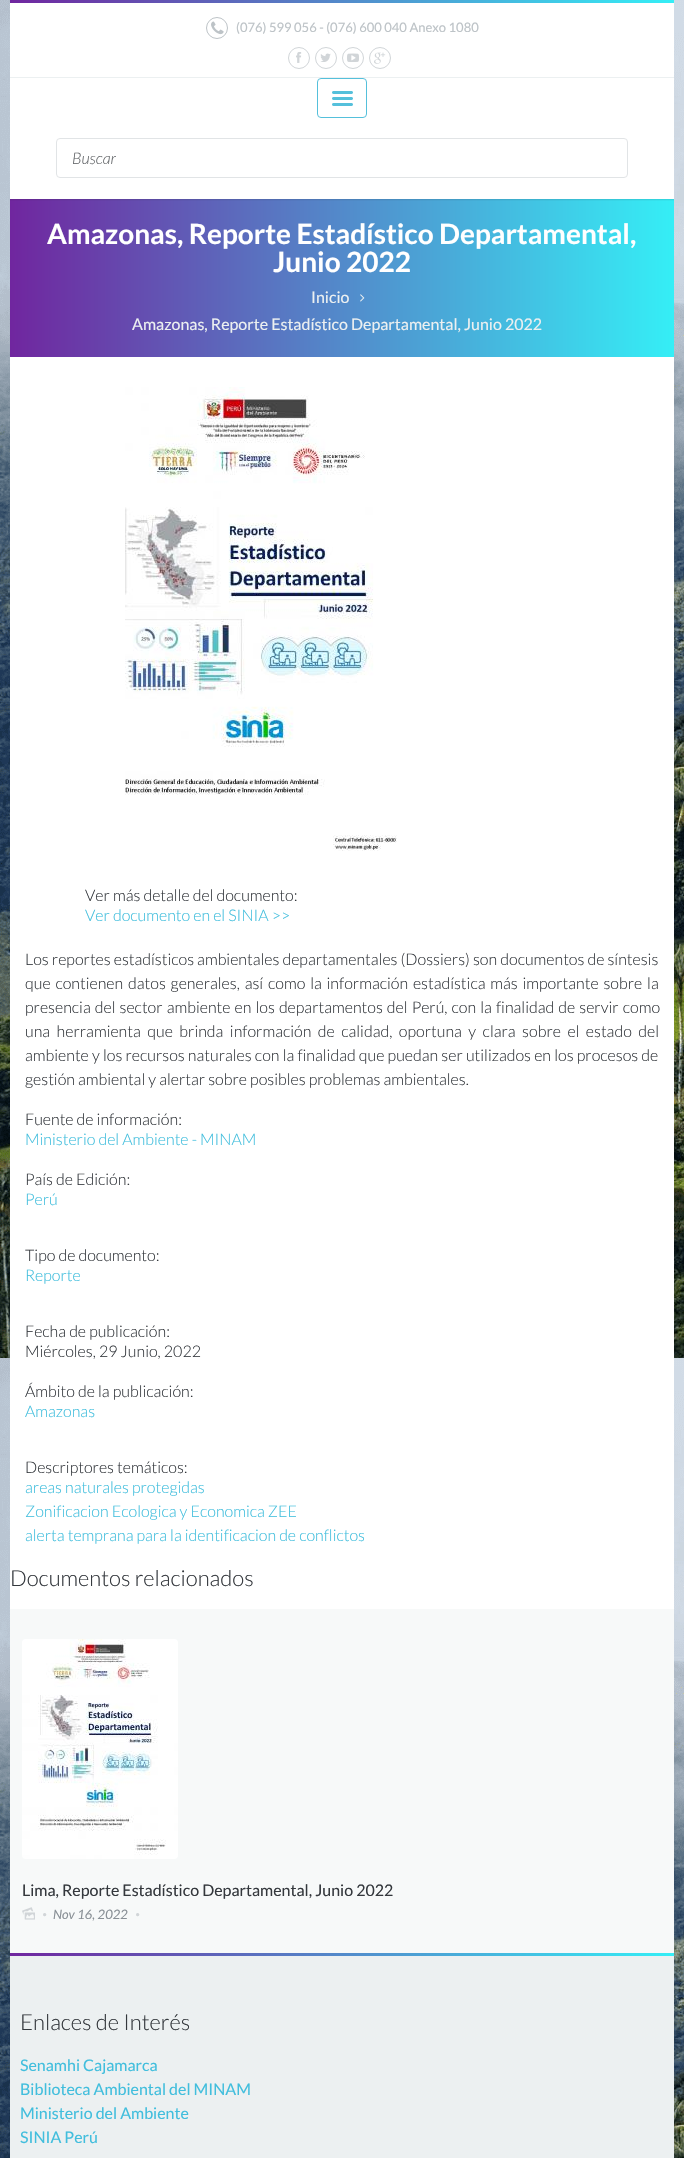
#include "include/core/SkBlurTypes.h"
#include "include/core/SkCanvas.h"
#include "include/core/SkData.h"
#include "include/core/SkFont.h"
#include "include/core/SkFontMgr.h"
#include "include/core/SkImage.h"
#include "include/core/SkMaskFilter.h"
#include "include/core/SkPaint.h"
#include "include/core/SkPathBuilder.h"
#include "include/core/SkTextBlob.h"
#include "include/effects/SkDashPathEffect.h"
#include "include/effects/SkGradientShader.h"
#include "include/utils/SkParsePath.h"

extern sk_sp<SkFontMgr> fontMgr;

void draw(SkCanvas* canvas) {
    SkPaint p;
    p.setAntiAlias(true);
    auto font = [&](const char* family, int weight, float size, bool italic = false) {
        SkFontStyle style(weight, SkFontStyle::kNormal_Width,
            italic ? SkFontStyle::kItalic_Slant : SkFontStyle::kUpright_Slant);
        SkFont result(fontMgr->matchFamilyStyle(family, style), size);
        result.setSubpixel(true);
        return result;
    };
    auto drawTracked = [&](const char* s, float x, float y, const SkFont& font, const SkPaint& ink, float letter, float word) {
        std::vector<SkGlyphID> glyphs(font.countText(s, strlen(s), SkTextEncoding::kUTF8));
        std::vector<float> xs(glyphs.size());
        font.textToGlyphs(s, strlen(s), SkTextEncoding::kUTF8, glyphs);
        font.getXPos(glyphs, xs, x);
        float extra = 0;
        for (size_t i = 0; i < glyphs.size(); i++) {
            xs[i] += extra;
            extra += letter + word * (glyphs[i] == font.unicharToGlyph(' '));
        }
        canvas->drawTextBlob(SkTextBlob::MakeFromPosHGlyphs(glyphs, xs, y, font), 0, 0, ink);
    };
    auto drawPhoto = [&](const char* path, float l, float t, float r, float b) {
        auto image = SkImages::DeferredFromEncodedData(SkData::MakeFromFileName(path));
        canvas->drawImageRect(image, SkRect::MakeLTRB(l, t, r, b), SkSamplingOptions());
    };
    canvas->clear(0xFFFFFFFF);
    drawPhoto("media/1.png", 0, 0, 684, 2158);
    p.setColor(0xFFFFFFFF);
    canvas->drawRect(SkRect::MakeLTRB(10, 3, 674, 1609), p);
    {
        const SkColor colors[] = {0xFF70269F, 0xFF35EEF6};
        const float stops[] = {0, 1};
        const SkPoint ends[] = {{10, 1.5f}, {674, 1.5f}};
        p.setShader(SkGradientShader::MakeLinear(ends, colors, stops, 2, SkTileMode::kClamp));
        p.setAlpha(255);
    }
    canvas->drawRect(SkRect::MakeLTRB(10, 0, 674, 3), p);
    p.setStyle(SkPaint::kStroke_Style);
    p.setStrokeWidth(1);
    p.setShader(nullptr);
    p.setColor(0xFFBDC3C7);
    canvas->drawCircle(217, 28, 10.5f, p);
    drawPhoto("media/2.png", 211, 21, 224, 35);
    auto font1 = font("Lato", 400, 13);
    p.setStyle(SkPaint::kFill_Style);
    canvas->drawString("(076) 599 056 - (076) 600 040 Anexo 1080", 236, 32, font1, p);
    p.setStyle(SkPaint::kStroke_Style);
    p.setColor(0xFFD1D5D8);
    canvas->drawCircle(299, 58, 10.5f, p);
    drawPhoto("media/3.png", 296, 52, 302, 63);
    canvas->drawCircle(326, 58, 10.5f, p);
    drawPhoto("media/4.png", 320, 53, 331, 62);
    canvas->drawCircle(353, 58, 10.5f, p);
    drawPhoto("media/5.png", 347, 53, 359, 62);
    canvas->drawCircle(380, 58, 10.5f, p);
    drawPhoto("media/6.png", 374, 52, 386, 64);
    p.setStyle(SkPaint::kFill_Style);
    p.setColor(0xFFECF0F1);
    canvas->drawRect(SkRect::MakeLTRB(10, 77, 674, 78), p);
    p.setStyle(SkPaint::kStroke_Style);
    p.setColor(0xFF55C0DB);
    canvas->drawRoundRect(SkRect::MakeLTRB(317.5f, 78.5f, 366.5f, 117.5f), 3.5f, 3.5f, p);
    drawPhoto("media/7.png", 332, 91, 353, 106);
    p.setColor(0xFFE1E4E6);
    canvas->drawRoundRect(SkRect::MakeLTRB(56.5f, 138.5f, 627.5f, 177.5f), 3.5f, 3.5f, p);
    auto font2 = font("Lato", 300, 16, true);
    p.setStyle(SkPaint::kFill_Style);
    p.setColor(0xFF606366);
    canvas->drawString("Buscar", 72, 164, font2, p);
    {
        const SkColor colors[] = {0xFF70269F, 0xFF35EEF6};
        const float stops[] = {0, 1};
        const SkPoint ends[] = {{10, 278}, {674, 278}};
        p.setShader(SkGradientShader::MakeLinear(ends, colors, stops, 2, SkTileMode::kClamp));
        p.setAlpha(255);
    }
    canvas->drawRect(SkRect::MakeLTRB(10, 199, 674, 357), p);
    drawPhoto("media/8.png", 10, 199, 674, 201);
    auto font3 = font("Lato", 700, 28);
    p.setShader(nullptr);
    p.setColor(0xFFFFFFFF);
    canvas->drawString("Amazonas, Reporte Estadístico Departamental,", 47, 244, font3, p);
    canvas->drawString("Junio 2022", 273, 272, font3, p);
    auto font4 = font("Lato", 400, 16);
    p.setColor(0xFFECF0F1);
    canvas->drawString("Inicio", 311, 303, font4, p);
    drawPhoto("media/9.png", 360, 294, 365, 302);
    canvas->drawString("Amazonas, Reporte Estadístico Departamental, Junio 2022", 132, 330, font4, p);
    drawPhoto("media/10.png", 125, 387, 397, 851);
    auto font5 = font("Lato", 300, 16);
    p.setColor(0xFF34383D);
    canvas->drawString("Ver más detalle del documento:", 85, 901, font5, p);
    p.setColor(0xFF41BEDD);
    canvas->drawString("Ver documento en el SINIA >>", 85, 921, font5, p);
    p.setColor(0xFF34383D);
    canvas->drawString("Los reportes estadísticos ambientales departamentales (Dossiers) son documentos de síntesis", 25, 965, font5, p);
    drawTracked("que contienen datos generales, así como la información estadística más importante sobre la", 25, 989, font5, p, 0, 1.75f);
    drawTracked("presencia del sector ambiente en los departamentos del Perú, con la finalidad de servir como", 25, 1013, font5, p, 0, 1);
    drawTracked("una herramienta que brinda información de calidad, oportuna y clara sobre el estado del", 25, 1037, font5, p, 0, 3.4f);
    drawTracked("ambiente y los recursos naturales con la finalidad que puedan ser utilizados en los procesos de", 25, 1061, font5, p, 0, 0.1f);
    canvas->drawString("gestión ambiental y alertar sobre posibles problemas ambientales.", 25, 1085, font5, p);
    canvas->drawString("Fuente de información:", 25, 1125, font5, p);
    p.setColor(0xFF41BEDD);
    canvas->drawString("Ministerio del Ambiente - MINAM", 25, 1145, font5, p);
    p.setColor(0xFF34383D);
    canvas->drawString("País de Edición:", 25, 1185, font5, p);
    p.setColor(0xFF41BEDD);
    canvas->drawString("Perú", 25, 1205, font5, p);
    p.setColor(0xFF34383D);
    canvas->drawString("Tipo de documento:", 25, 1261, font5, p);
    p.setColor(0xFF41BEDD);
    canvas->drawString("Reporte", 25, 1281, font5, p);
    p.setColor(0xFF34383D);
    {
        const struct { const char* s; float x, y; } items[] = {
            {"Fecha de publicación:", 25, 1337},
            {"Miércoles, 29 Junio, 2022", 25, 1357},
            {"Ámbito de la publicación:", 25, 1397},
        };
        for (auto [s, x, y] : items) {
            canvas->drawString(s, x, y, font5, p);
        }
    }
    p.setColor(0xFF41BEDD);
    canvas->drawString("Amazonas", 25, 1417, font5, p);
    p.setColor(0xFF34383D);
    canvas->drawString("Descriptores temáticos:", 25, 1473, font5, p);
    p.setColor(0xFF41BEDD);
    {
        const struct { const char* s; float x, y; } items[] = {
            {"areas naturales protegidas", 25, 1493},
            {"Zonificacion Ecologica y Economica ZEE", 25, 1517},
            {"alerta temprana para la identificacion de conflictos", 25, 1541},
        };
        for (auto [s, x, y] : items) {
            canvas->drawString(s, x, y, font5, p);
        }
    }
    auto font6 = font("Lato", 300, 22);
    p.setColor(0xFF34383D);
    canvas->drawString("Documentos relacionados", 10, 1586, font6, p);
    p.setColor(0xFFF7F9F9);
    canvas->drawRect(SkRect::MakeLTRB(10, 1609, 674, 1953), p);
    drawPhoto("media/11.png", 22, 1639, 178, 1859);
    p.setColor(0xFF34383D);
    canvas->drawString("Lima, Reporte Estadístico Departamental, Junio 2022", 22, 1896, font4, p);
    drawPhoto("media/12.png", 22, 1907, 35, 1920);
    auto font7 = font("Lato", 400, 25);
    p.setColor(0xFFD1D5D8);
    canvas->drawString(".", 42, 1916, font7, p);
    auto font8 = font("Lato", 400, 13, true);
    p.setColor(0xFF899096);
    canvas->drawString("Nov 16, 2022", 53, 1919, font8, p);
    p.setColor(0xFFD1D5D8);
    canvas->drawString(".", 135, 1916, font7, p);
    {
        const SkColor colors[] = {0xFF70269F, 0xFF35EEF6};
        const float stops[] = {0, 1};
        const SkPoint ends[] = {{10, 1955}, {674, 1955}};
        p.setShader(SkGradientShader::MakeLinear(ends, colors, stops, 2, SkTileMode::kClamp));
        p.setAlpha(255);
    }
    canvas->drawRect(SkRect::MakeLTRB(10, 1953, 674, 1956), p);
    p.setShader(nullptr);
    p.setColor(0xFFECF0F1);
    canvas->drawRect(SkRect::MakeLTRB(10, 1956, 674, 2158), p);
    p.setColor(0xFF34383D);
    canvas->drawString("Enlaces de Interés", 20, 2030, font6, p);
    p.setColor(0xFF41BEDD);
    {
        const struct { const char* s; float x, y; } items[] = {
            {"Senamhi Cajamarca", 20, 2071},
            {"Biblioteca Ambiental del MINAM", 20, 2095},
            {"Ministerio del Ambiente", 20, 2119},
            {"SINIA Perú", 20, 2143},
        };
        for (auto [s, x, y] : items) {
            canvas->drawString(s, x, y, font4, p);
        }
    }
}
